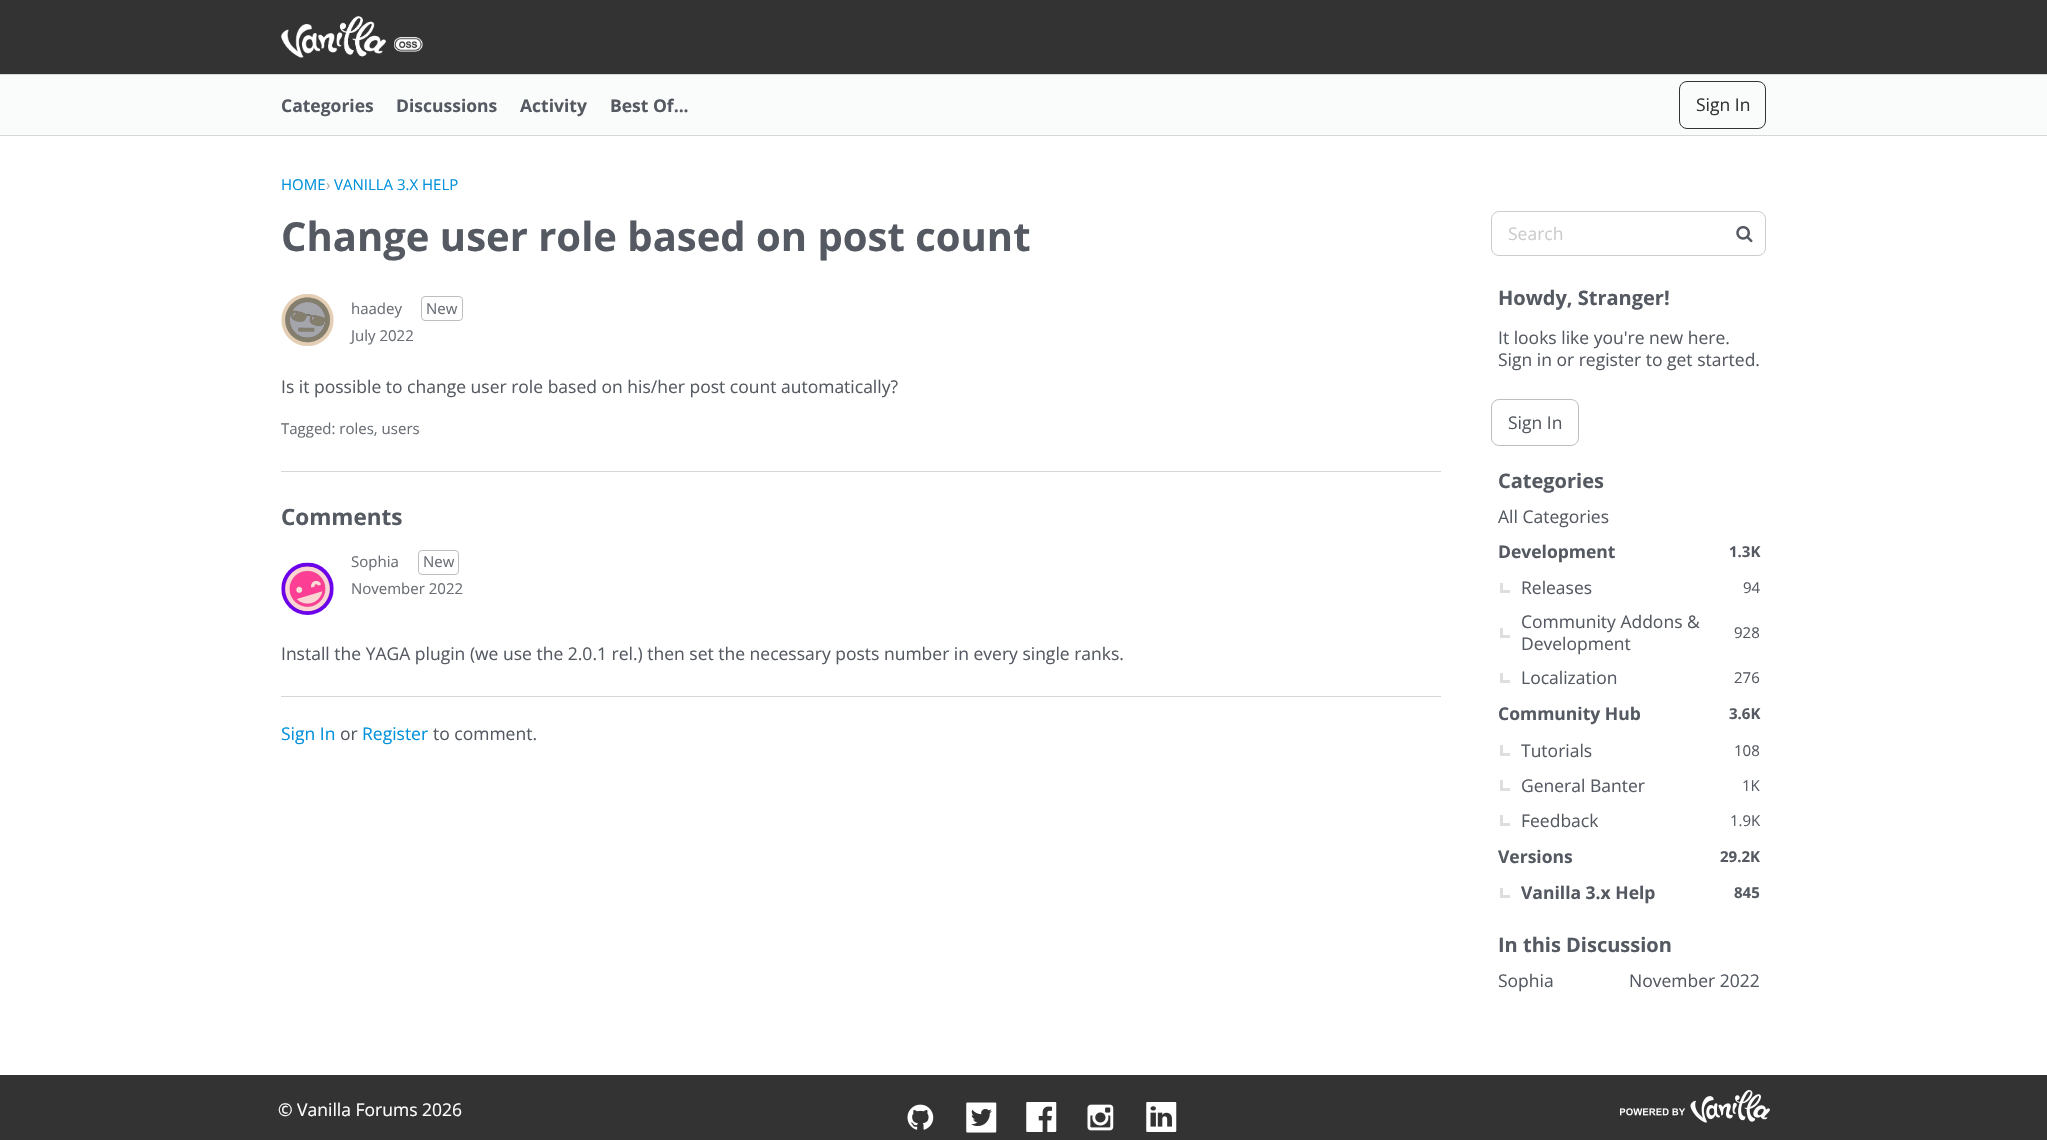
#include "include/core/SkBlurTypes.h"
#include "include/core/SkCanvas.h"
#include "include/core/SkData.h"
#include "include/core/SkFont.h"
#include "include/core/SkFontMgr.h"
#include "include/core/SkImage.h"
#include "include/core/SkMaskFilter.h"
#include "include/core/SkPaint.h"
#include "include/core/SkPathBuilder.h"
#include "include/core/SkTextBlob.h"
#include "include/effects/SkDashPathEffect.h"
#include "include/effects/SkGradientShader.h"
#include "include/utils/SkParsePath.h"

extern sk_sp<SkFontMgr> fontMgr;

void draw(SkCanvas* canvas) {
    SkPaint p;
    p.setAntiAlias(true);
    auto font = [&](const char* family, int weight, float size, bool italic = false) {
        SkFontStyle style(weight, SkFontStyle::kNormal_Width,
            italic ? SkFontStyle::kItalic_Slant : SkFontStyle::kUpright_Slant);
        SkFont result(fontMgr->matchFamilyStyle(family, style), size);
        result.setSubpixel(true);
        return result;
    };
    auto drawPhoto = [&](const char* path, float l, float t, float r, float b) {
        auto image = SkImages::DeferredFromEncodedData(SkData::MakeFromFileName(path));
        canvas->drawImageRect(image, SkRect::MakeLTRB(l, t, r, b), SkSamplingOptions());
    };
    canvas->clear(0xFFFFFFFF);
    p.setColor(0xFF333333);
    canvas->drawRect(SkRect::MakeLTRB(0, 0, 2047, 74), p);
    p.setColor(0xFFD6D7D9);
    canvas->drawRect(SkRect::MakeLTRB(0, 74, 2047, 75), p);
    drawPhoto("media/1.png", 281, 16, 423, 58);
    p.setColor(0xFFFAFBFB);
    canvas->drawRect(SkRect::MakeLTRB(0, 75, 2047, 135), p);
    p.setColor(0xFFD6D7D9);
    canvas->drawRect(SkRect::MakeLTRB(0, 135, 2047, 136), p);
    auto font1 = font("Open Sans", 700, 17.5f);
    p.setColor(0xFF555A62);
    {
        const struct { const char* s; float x, y; } items[] = {
            {"Categories", 281, 112},
            {"Discussions", 396, 112},
            {"Activity", 520, 112},
            {"Best Of...", 610, 112},
        };
        for (auto [s, x, y] : items) {
            canvas->drawString(s, x, y, font1, p);
        }
    }
    p.setStyle(SkPaint::kStroke_Style);
    p.setStrokeWidth(1);
    p.setColor(0xFF333333);
    canvas->drawRoundRect(SkRect::MakeLTRB(1679.5f, 81.5f, 1765.5f, 128.5f), 7.5f, 7.5f, p);
    auto font2 = font("Open Sans", 400, 17.5f);
    p.setStyle(SkPaint::kFill_Style);
    canvas->drawString("Sign In", 1696, 111, font2, p);
    auto font3 = font("Open Sans", 400, 15);
    p.setColor(0xFF0291DB);
    canvas->drawString("HOME", 281, 190, font3, p);
    p.setColor(0xFFAAADB1);
    canvas->drawString("›", 326, 190, font3, p);
    p.setColor(0xFF0291DB);
    canvas->drawString("VANILLA 3.X HELP", 334, 190, font3, p);
    auto font4 = font("Open Sans", 700, 40);
    p.setColor(0xFF555A62);
    canvas->drawString("Change user role based on post count", 281, 251, font4, p);
    p.setColor(0xFFD6D7D9);
    canvas->drawRect(SkRect::MakeLTRB(281, 471, 1441, 472), p);
    drawPhoto("media/2.png", 281, 294, 334, 346);
    p.setColor(0xFF696E75);
    canvas->drawString("haadey", 351, 314, font3, p);
    p.setStyle(SkPaint::kStroke_Style);
    p.setColor(0xFFBCBEC1);
    canvas->drawRoundRect(SkRect::MakeLTRB(421.5f, 296.5f, 462.5f, 320.5f), 3.5f, 3.5f, p);
    p.setStyle(SkPaint::kFill_Style);
    p.setColor(0xFF696E75);
    canvas->drawString("New", 426, 314, font3, p);
    canvas->drawString("July 2022", 351, 341, font3, p);
    p.setColor(0xFF555A62);
    canvas->drawString("Is it possible to change user role based on his/her post count automatically?", 281, 393, font2, p);
    p.setColor(0xFF696E75);
    canvas->drawString("Tagged: roles, users", 281, 434, font3, p);
    auto font5 = font("Open Sans", 700, 22.5f);
    p.setColor(0xFF555A62);
    canvas->drawString("Comments", 281, 525, font5, p);
    p.setColor(0xFFD6D7D9);
    canvas->drawRect(SkRect::MakeLTRB(281, 696, 1441, 697), p);
    drawPhoto("media/3.png", 281, 562, 334, 615);
    p.setColor(0xFF696E75);
    canvas->drawString("Sophia", 351, 567, font3, p);
    p.setStyle(SkPaint::kStroke_Style);
    p.setColor(0xFFBCBEC1);
    canvas->drawRoundRect(SkRect::MakeLTRB(418.5f, 550.5f, 458.5f, 574.5f), 3.5f, 3.5f, p);
    p.setStyle(SkPaint::kFill_Style);
    p.setColor(0xFF696E75);
    canvas->drawString("New", 423, 567, font3, p);
    canvas->drawString("November 2022", 351, 594, font3, p);
    p.setColor(0xFF555A62);
    canvas->drawString("Install the YAGA plugin (we use the 2.0.1 rel.) then set the necessary posts number in every single ranks.", 281, 660, font2, p);
    p.setColor(0xFF0291DB);
    canvas->drawString("Sign In", 281, 740, font2, p);
    p.setColor(0xFF555A62);
    canvas->drawString("or", 340, 740, font2, p);
    p.setColor(0xFF0291DB);
    canvas->drawString("Register", 362, 740, font2, p);
    p.setColor(0xFF555A62);
    canvas->drawString("to comment.", 433, 740, font2, p);
    p.setStyle(SkPaint::kStroke_Style);
    p.setColor(0xFFCCCCCC);
    canvas->drawRoundRect(SkRect::MakeLTRB(1491.5f, 211.5f, 1765.5f, 255.5f), 7.5f, 7.5f, p);
    p.setStyle(SkPaint::kFill_Style);
    canvas->drawString("Search", 1508, 240, font2, p);
    drawPhoto("media/4.png", 1736, 226, 1753, 243);
    auto font6 = font("Open Sans", 700, 20);
    p.setColor(0xFF555A62);
    canvas->drawString("Howdy, Stranger!", 1498, 305, font6, p);
    canvas->drawString("It looks like you're new here.", 1498, 344, font2, p);
    canvas->drawString("Sign in or register to get started.", 1498, 366, font2, p);
    p.setStyle(SkPaint::kStroke_Style);
    p.setColor(0xFFBCBEC1);
    canvas->drawRoundRect(SkRect::MakeLTRB(1491.5f, 399.5f, 1578.5f, 445.5f), 7.5f, 7.5f, p);
    p.setStyle(SkPaint::kFill_Style);
    p.setColor(0xFF555A62);
    canvas->drawString("Sign In", 1508, 429, font2, p);
    canvas->drawString("Categories", 1498, 488, font6, p);
    canvas->drawString("All Categories", 1498, 523, font2, p);
    canvas->drawString("Development", 1498, 558, font1, p);
    auto font7 = font("Open Sans", 700, 15);
    canvas->drawString("1.3K", 1729, 557, font7, p);
    p.setColor(0xFFDDDEE0);
    canvas->drawRect(SkRect::MakeLTRB(1500, 590, 1510, 593), p);
    canvas->drawRect(SkRect::MakeLTRB(1500, 583, 1503, 593), p);
    p.setColor(0xFF555A62);
    canvas->drawString("Releases", 1521, 594, font2, p);
    canvas->drawString("94", 1743, 593, font3, p);
    p.setColor(0xFFDDDEE0);
    canvas->drawRect(SkRect::MakeLTRB(1500, 635, 1510, 638), p);
    canvas->drawRect(SkRect::MakeLTRB(1500, 628, 1503, 638), p);
    p.setColor(0xFF555A62);
    canvas->drawString("Community Addons &", 1521, 628, font2, p);
    canvas->drawString("928", 1734, 638, font3, p);
    canvas->drawString("Development", 1521, 650, font2, p);
    p.setColor(0xFFDDDEE0);
    canvas->drawRect(SkRect::MakeLTRB(1500, 680, 1510, 683), p);
    canvas->drawRect(SkRect::MakeLTRB(1500, 673, 1503, 683), p);
    p.setColor(0xFF555A62);
    canvas->drawString("Localization", 1521, 684, font2, p);
    canvas->drawString("276", 1734, 683, font3, p);
    canvas->drawString("Community Hub", 1498, 720, font1, p);
    canvas->drawString("3.6K", 1729, 719, font7, p);
    p.setColor(0xFFDDDEE0);
    canvas->drawRect(SkRect::MakeLTRB(1500, 753, 1510, 756), p);
    canvas->drawRect(SkRect::MakeLTRB(1500, 745, 1503, 755), p);
    p.setColor(0xFF555A62);
    canvas->drawString("Tutorials", 1521, 757, font2, p);
    canvas->drawString("108", 1734, 756, font3, p);
    p.setColor(0xFFDDDEE0);
    canvas->drawRect(SkRect::MakeLTRB(1500, 788, 1510, 791), p);
    canvas->drawRect(SkRect::MakeLTRB(1500, 780, 1503, 790), p);
    p.setColor(0xFF555A62);
    canvas->drawString("General Banter", 1521, 792, font2, p);
    canvas->drawString("1K", 1742, 791, font3, p);
    p.setColor(0xFFDDDEE0);
    canvas->drawRect(SkRect::MakeLTRB(1500, 823, 1510, 826), p);
    canvas->drawRect(SkRect::MakeLTRB(1500, 815, 1503, 825), p);
    p.setColor(0xFF555A62);
    canvas->drawString("Feedback", 1521, 827, font2, p);
    canvas->drawString("1.9K", 1730, 826, font3, p);
    canvas->drawString("Versions", 1498, 863, font1, p);
    canvas->drawString("29.2K", 1720, 862, font7, p);
    p.setColor(0xFFDDDEE0);
    canvas->drawRect(SkRect::MakeLTRB(1500, 895, 1510, 898), p);
    canvas->drawRect(SkRect::MakeLTRB(1500, 888, 1503, 898), p);
    p.setColor(0xFF555A62);
    canvas->drawString("Vanilla 3.x Help", 1521, 899, font1, p);
    canvas->drawString("845", 1734, 898, font7, p);
    canvas->drawString("In this Discussion", 1498, 952, font6, p);
    canvas->drawString("Sophia", 1498, 987, font2, p);
    canvas->drawString("November 2022", 1629, 987, font2, p);
    p.setColor(0xFF333333);
    canvas->drawRect(SkRect::MakeLTRB(0, 1075, 2047, 1140), p);
    p.setColor(0xFFFFFFFF);
    canvas->drawString("© Vanilla Forums 2026", 278, 1116, font2, p);
    drawPhoto("media/5.png", 907, 1104, 934, 1130);
    drawPhoto("media/6.png", 966, 1102, 997, 1133);
    drawPhoto("media/7.png", 1026, 1102, 1057, 1132);
    drawPhoto("media/8.png", 1087, 1104, 1114, 1131);
    drawPhoto("media/9.png", 1146, 1102, 1177, 1132);
    drawPhoto("media/10.png", 1620, 1090, 1770, 1123);
}
